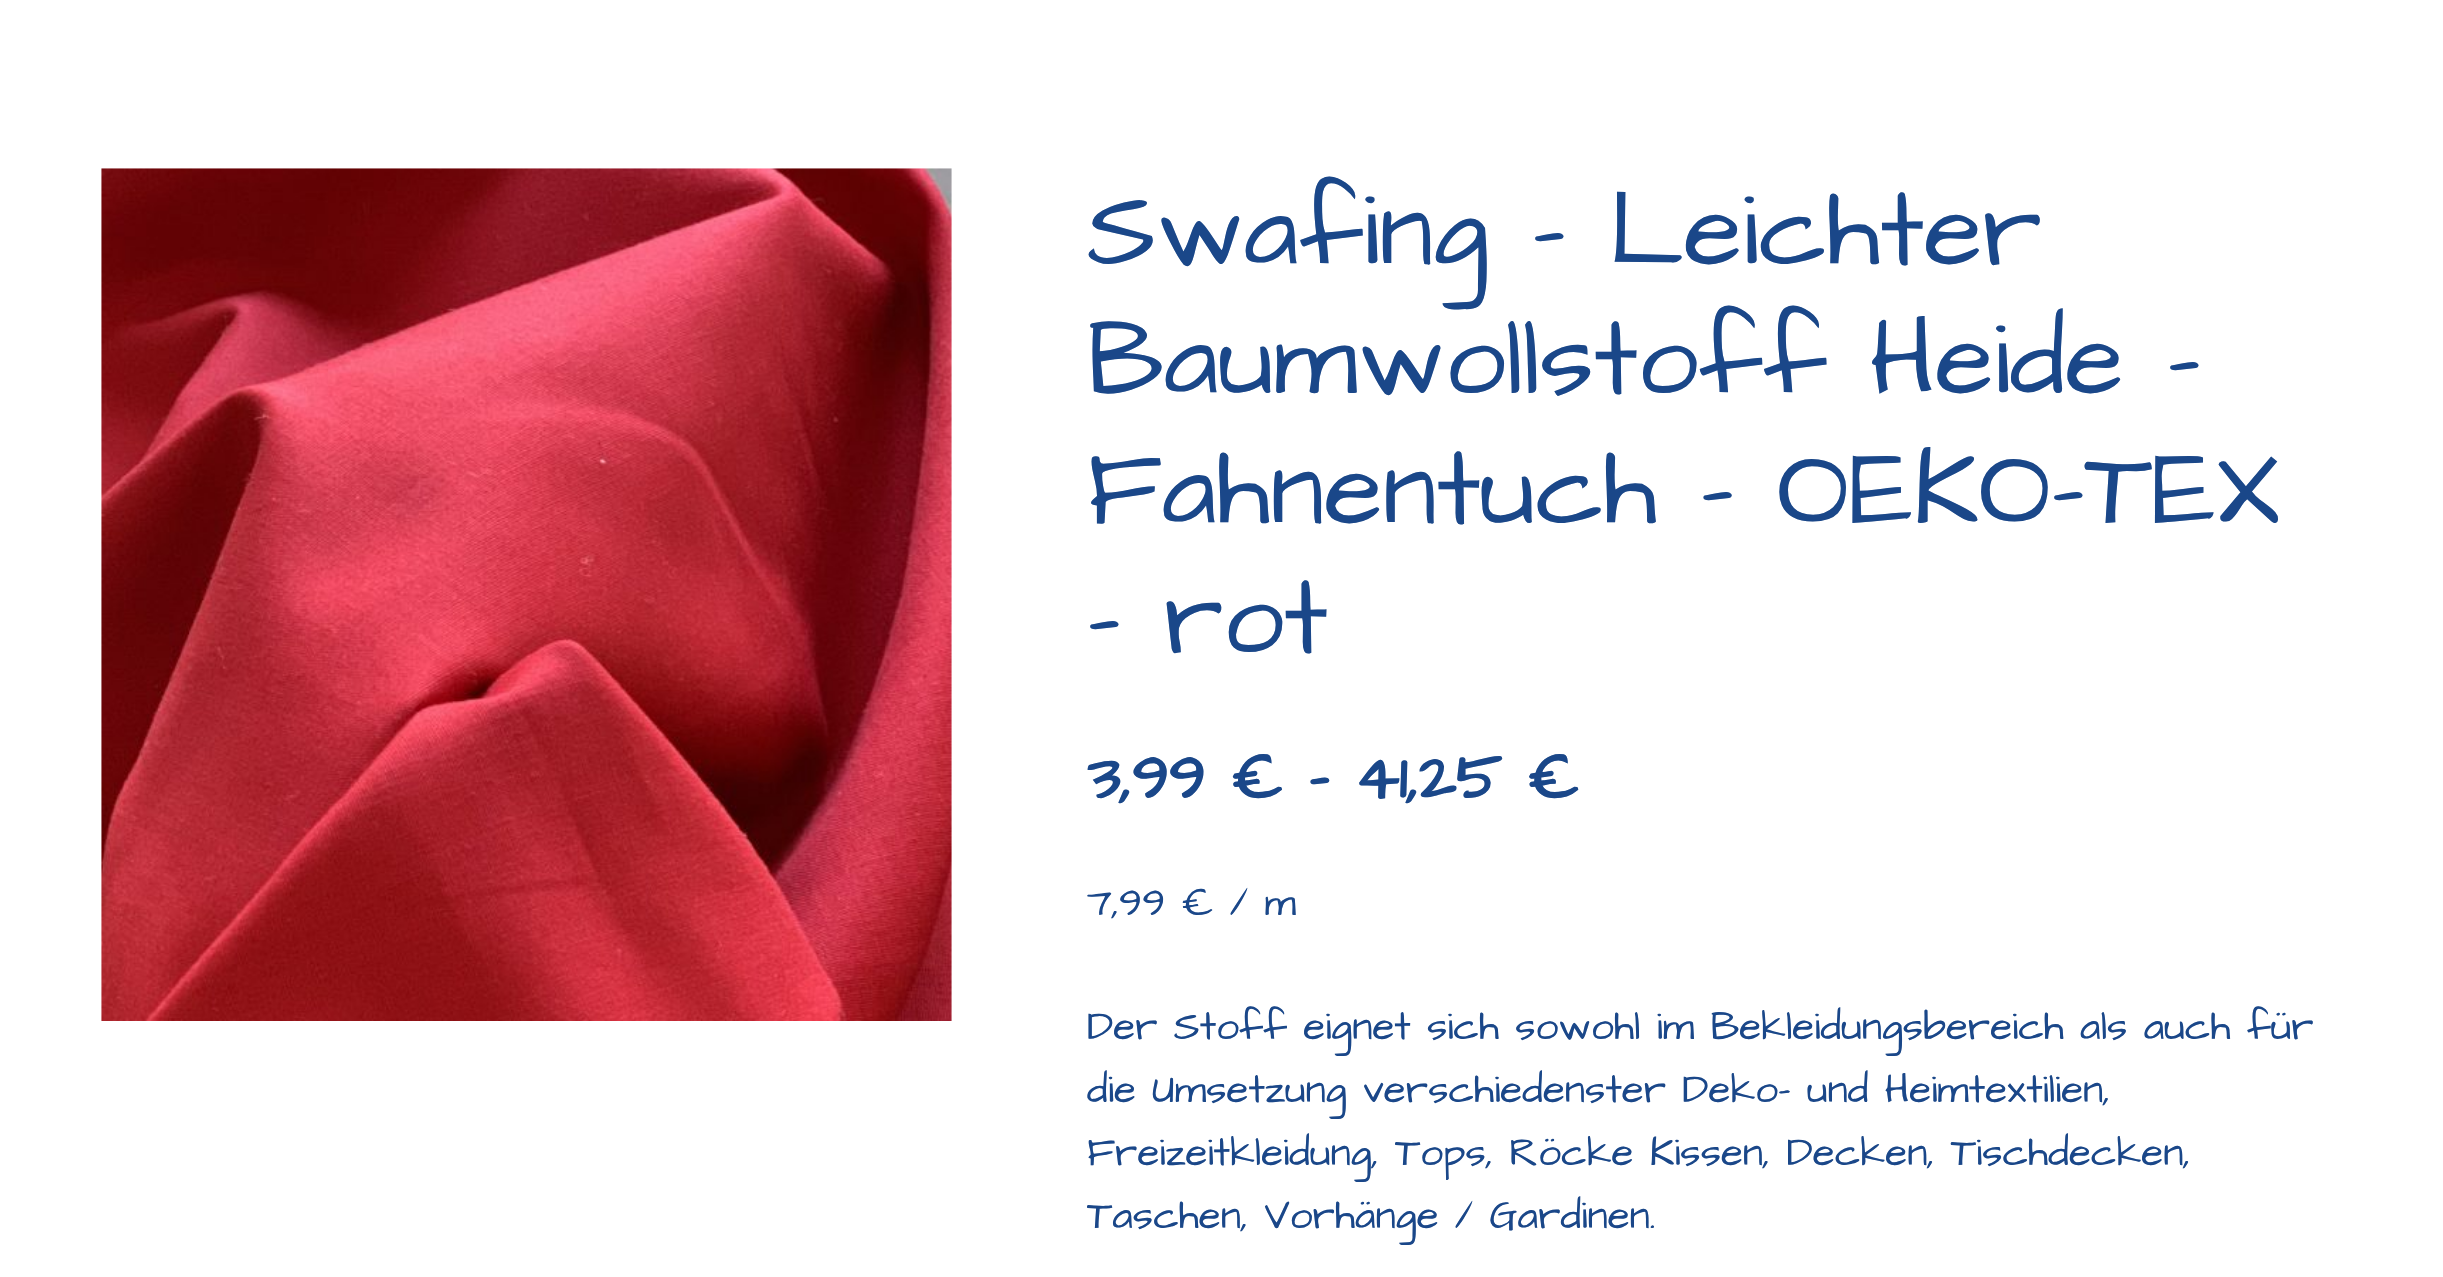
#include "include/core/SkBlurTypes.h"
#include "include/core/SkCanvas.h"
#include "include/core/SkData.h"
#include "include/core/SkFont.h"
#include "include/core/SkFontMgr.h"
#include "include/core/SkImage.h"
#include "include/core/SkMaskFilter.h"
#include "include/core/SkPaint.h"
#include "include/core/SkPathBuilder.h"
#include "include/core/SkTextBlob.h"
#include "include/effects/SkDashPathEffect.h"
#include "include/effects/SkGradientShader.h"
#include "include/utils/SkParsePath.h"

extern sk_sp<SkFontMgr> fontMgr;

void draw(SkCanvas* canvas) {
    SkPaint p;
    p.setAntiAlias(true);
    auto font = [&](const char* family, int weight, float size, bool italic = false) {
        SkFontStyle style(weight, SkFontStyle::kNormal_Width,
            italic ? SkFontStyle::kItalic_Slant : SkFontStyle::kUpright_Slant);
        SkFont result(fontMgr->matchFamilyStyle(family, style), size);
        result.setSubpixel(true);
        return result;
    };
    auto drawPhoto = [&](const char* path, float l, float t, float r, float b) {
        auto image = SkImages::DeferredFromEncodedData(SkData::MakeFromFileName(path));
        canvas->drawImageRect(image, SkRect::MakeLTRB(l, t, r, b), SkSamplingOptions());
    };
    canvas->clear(0xFFFFFFFF);
    drawPhoto("media/1.png", 101, 168, 952, 1021);
    auto font1 = font("Architects Daughter", 400, 108);
    p.setColor(0xFF1A4789);
    {
        const struct { const char* s; float x, y; } items[] = {
            {"Swafing – Leichter", 1087, 264},
            {"Baumwollstoff Heide -", 1087, 393},
            {"Fahnentuch – OEKO-TEX", 1087, 523},
            {"– rot", 1087, 652},
        };
        for (auto [s, x, y] : items) {
            canvas->drawString(s, x, y, font1, p);
        }
    }
    auto font2 = font("Architects Daughter", 700, 64.75f);
    canvas->drawString("3,99 € – 41,25 €", 1087, 798, font2, p);
    auto font3 = font("Architects Daughter", 400, 40.5f);
    {
        const struct { const char* s; float x, y; } items[] = {
            {"7,99 € / m", 1087, 915},
            {"Der Stoff eignet sich sowohl im Bekleidungsbereich als auch für", 1087, 1039},
            {"die Umsetzung verschiedenster Deko- und Heimtextilien,", 1087, 1102},
            {"Freizeitkleidung, Tops, Röcke Kissen, Decken, Tischdecken,", 1087, 1165},
            {"Taschen, Vorhänge / Gardinen.", 1087, 1228},
        };
        for (auto [s, x, y] : items) {
            canvas->drawString(s, x, y, font3, p);
        }
    }
}
